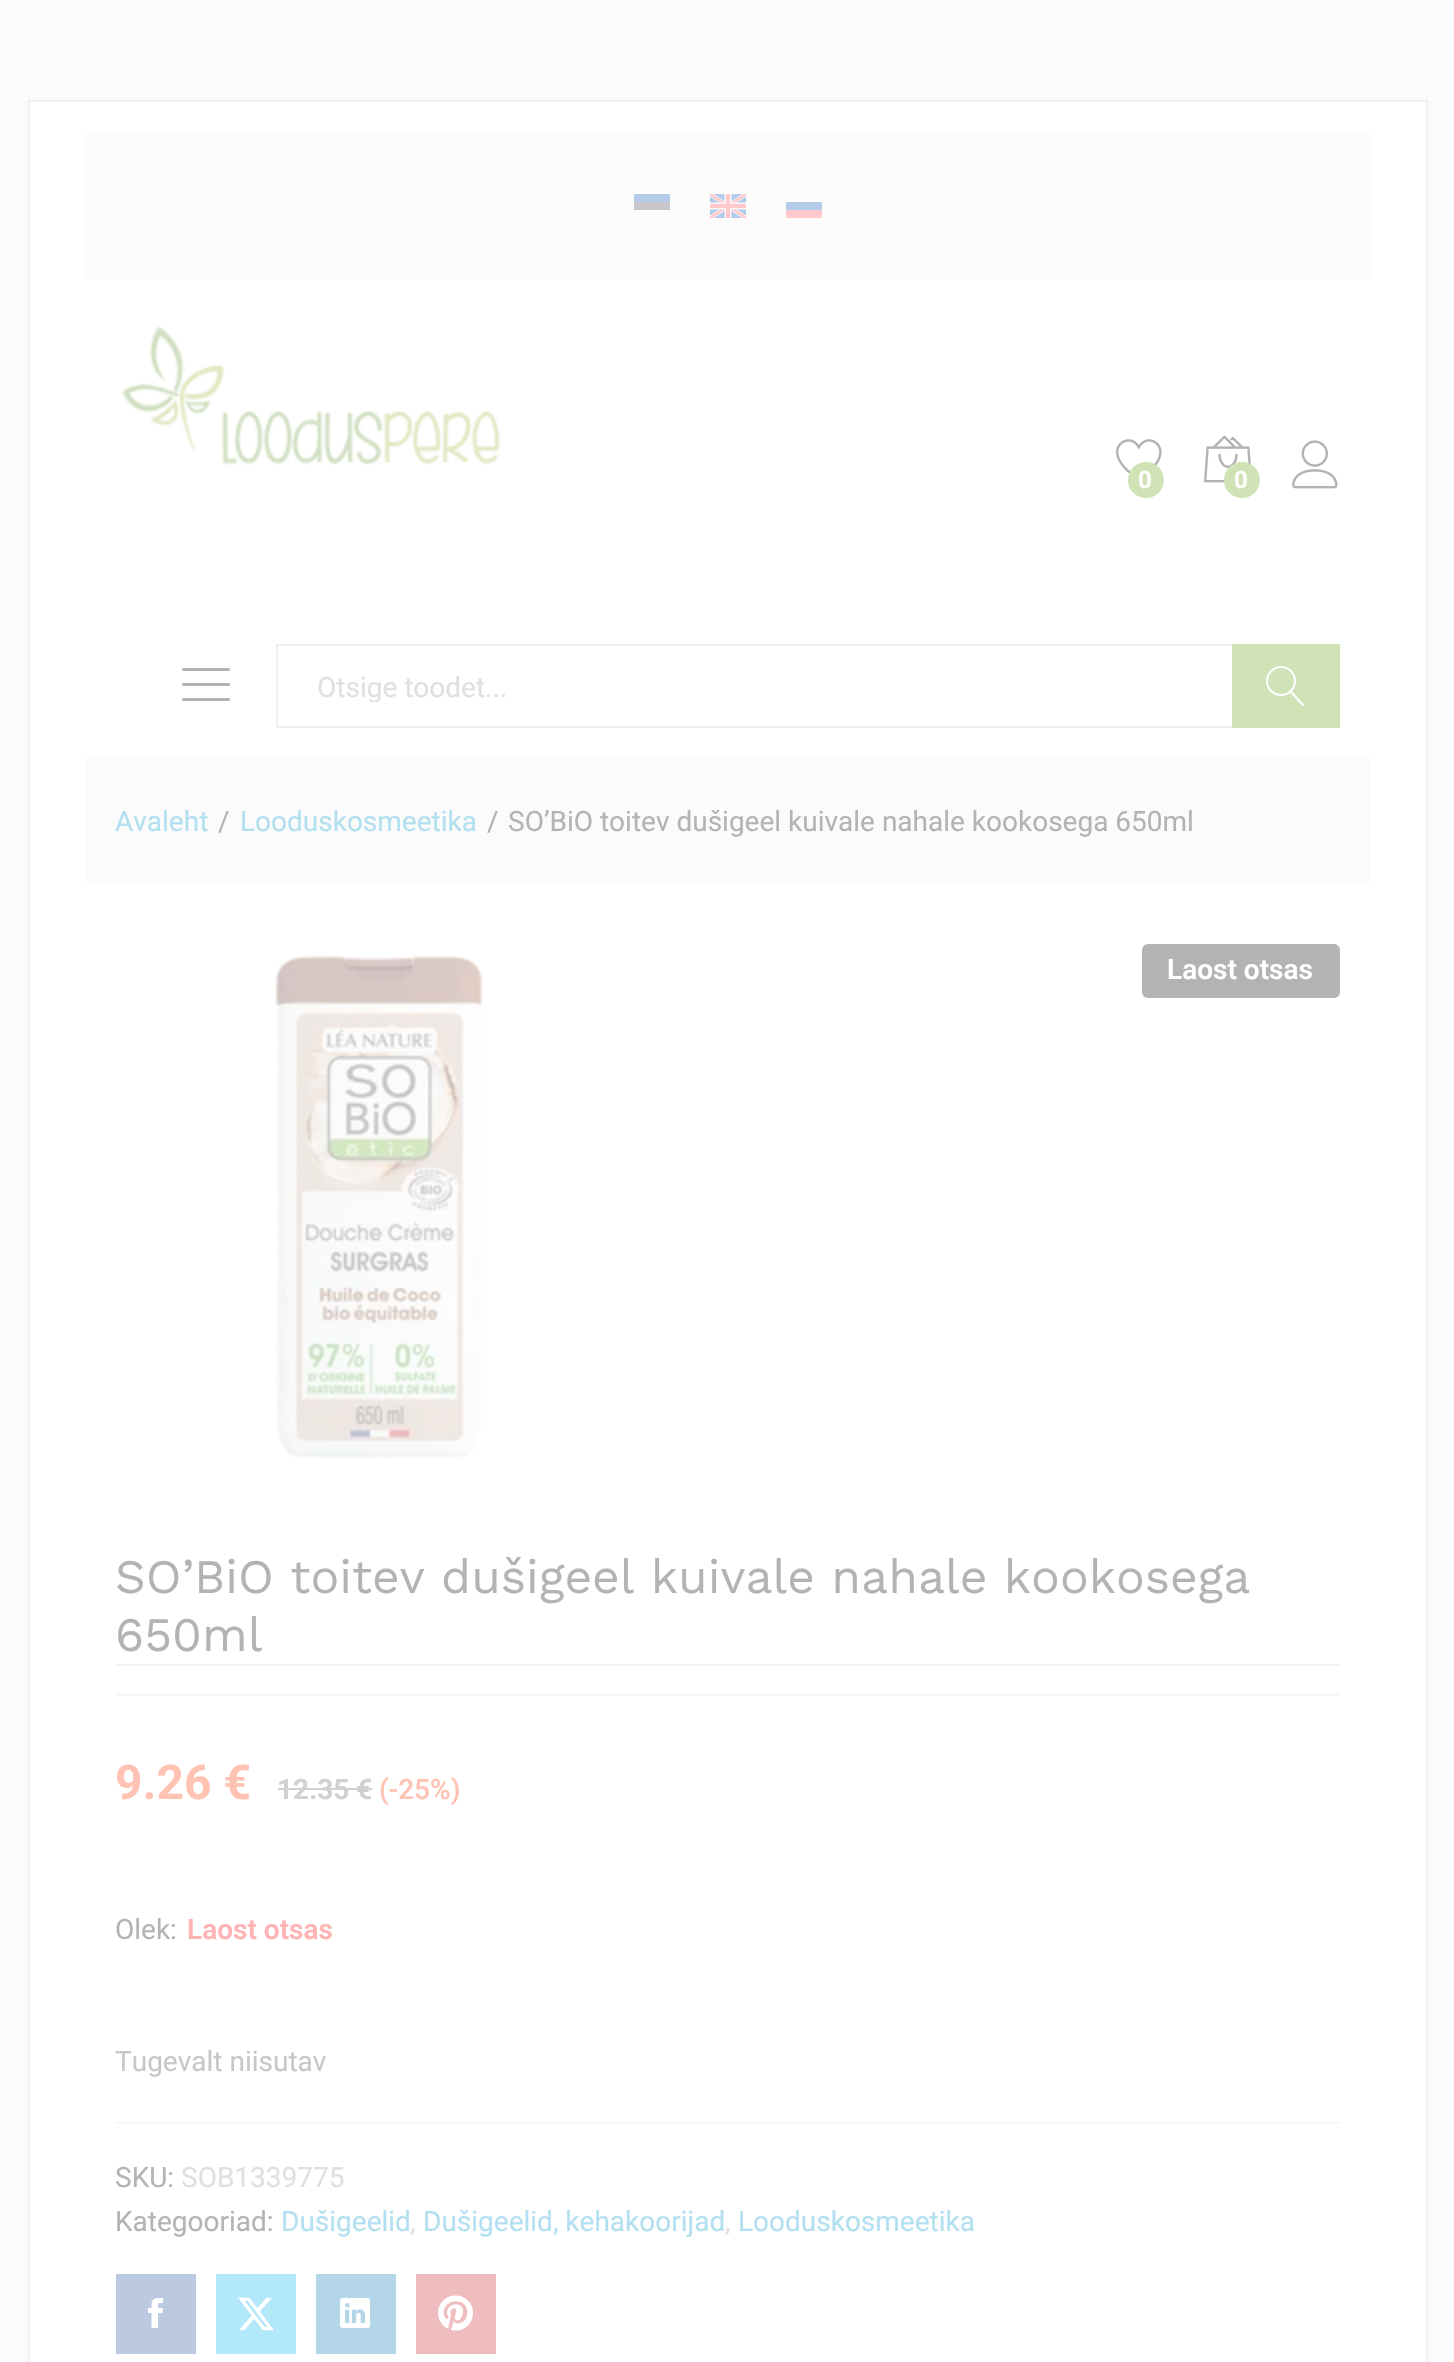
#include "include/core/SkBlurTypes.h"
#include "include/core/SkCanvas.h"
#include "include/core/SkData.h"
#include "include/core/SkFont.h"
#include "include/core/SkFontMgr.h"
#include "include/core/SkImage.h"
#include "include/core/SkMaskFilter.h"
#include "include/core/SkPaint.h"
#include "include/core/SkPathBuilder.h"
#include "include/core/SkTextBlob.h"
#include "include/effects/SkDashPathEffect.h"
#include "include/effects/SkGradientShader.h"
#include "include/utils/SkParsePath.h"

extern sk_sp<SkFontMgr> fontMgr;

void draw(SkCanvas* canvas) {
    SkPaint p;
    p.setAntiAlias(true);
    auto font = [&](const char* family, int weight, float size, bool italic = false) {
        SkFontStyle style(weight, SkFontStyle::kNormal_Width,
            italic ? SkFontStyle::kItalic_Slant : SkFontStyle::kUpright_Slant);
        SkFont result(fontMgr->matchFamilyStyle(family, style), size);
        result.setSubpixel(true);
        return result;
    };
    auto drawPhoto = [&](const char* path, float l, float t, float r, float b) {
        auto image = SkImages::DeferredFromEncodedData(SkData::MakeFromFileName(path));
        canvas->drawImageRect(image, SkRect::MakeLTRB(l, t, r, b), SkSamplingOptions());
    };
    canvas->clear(0xFFFBFBFB);
    p.setColor(0xFFFFFFFF);
    canvas->drawRect(SkRect::MakeLTRB(29, 101, 1427, 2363), p);
    p.setStyle(SkPaint::kStroke_Style);
    p.setStrokeWidth(2);
    p.setColor(0xFFF0F1F2);
    canvas->drawRect(SkRect::MakeLTRB(29, 101, 1427, 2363), p);
    p.setStyle(SkPaint::kFill_Style);
    {
        const struct { float l, t, r, b; SkColor color; } items[] = {
            {86, 130, 1370, 280, 0xFFFCFCFC},
            {634, 194, 670, 202, 0xFFB3CBE9},
            {634, 202, 670, 210, 0xFFC8C8CC},
        };
        for (auto [l, t, r, b, color] : items) {
            p.setColor(color);
            canvas->drawRect(SkRect::MakeLTRB(l, t, r, b), p);
        }
    }
    drawPhoto("media/1.png", 710, 194, 746, 218);
    p.setColor(0xFFB3CBE9);
    canvas->drawRect(SkRect::MakeLTRB(786, 202, 822, 210), p);
    p.setColor(0xFFFFC9CC);
    canvas->drawRect(SkRect::MakeLTRB(786, 210, 822, 218), p);
    drawPhoto("media/2.png", 121, 325, 501, 466);
    drawPhoto("media/3.png", 1116, 439, 1162, 474);
    p.setColor(0xFFCFE3B7);
    canvas->drawCircle(1146, 480, 18, p);
    auto font1 = font("Roboto", 700, 24);
    p.setColor(0xFFFFFFFF);
    canvas->drawString("0", 1138, 488, font1, p);
    drawPhoto("media/4.png", 1204, 435, 1251, 483);
    p.setColor(0xFFCFE3B7);
    canvas->drawCircle(1242, 480, 18, p);
    p.setColor(0xFFFFFFFF);
    canvas->drawString("0", 1234, 488, font1, p);
    drawPhoto("media/5.png", 1292, 440, 1338, 489);
    drawPhoto("media/6.png", 182, 668, 230, 701);
    {
        const struct { float l, t, r, b; SkColor color; } items[] = {
            {276, 644, 1232, 646, 0xFFF0F0F0},
            {276, 726, 1232, 728, 0xFFF0F0F0},
            {276, 644, 278, 728, 0xFFF0F0F0},
        };
        for (auto [l, t, r, b, color] : items) {
            p.setColor(color);
            canvas->drawRect(SkRect::MakeLTRB(l, t, r, b), p);
        }
    }
    canvas->save();
    canvas->clipRect(SkRect::MakeLTRB(318, 670, 1192, 702));
    auto font2 = font("Roboto", 400, 28);
    p.setColor(0xFFE0E0E0);
    canvas->drawString("Otsige toodet...", 317, 697, font2, p);
    canvas->restore();
    p.setColor(0xFFCFE3B7);
    canvas->drawRect(SkRect::MakeLTRB(1232, 644, 1340, 728), p);
    drawPhoto("media/7.png", 1266, 666, 1304, 706);
    p.setColor(0xFFFBFBFB);
    canvas->drawRect(SkRect::MakeLTRB(86, 758, 1370, 884), p);
    p.setColor(0xFFB3E0F0);
    canvas->drawString("Avaleht", 115, 831, font2, p);
    p.setColor(0xFFB3B3B3);
    canvas->drawString("/", 218, 831, font2, p);
    p.setColor(0xFFB3E0F0);
    canvas->drawString("Looduskosmeetika", 240, 831, font2, p);
    p.setColor(0xFFB3B3B3);
    canvas->drawString("/", 487, 831, font2, p);
    canvas->drawString("SO’BiO toitev dušigeel kuivale nahale kookosega 650ml", 508, 831, font2, p);
    drawPhoto("media/8.png", 275, 955, 483, 1459);
    canvas->drawRoundRect(SkRect::MakeLTRB(1142, 944, 1340, 998), 6, 6, p);
    auto font3 = font("Roboto", 600, 28);
    p.setColor(0xFFFFFFFF);
    canvas->drawString("Laost otsas", 1167, 979, font3, p);
    p.setColor(0xFFF6F6F6);
    canvas->drawRect(SkRect::MakeLTRB(116, 1694, 1340, 1696), p);
    p.setColor(0xFFF4F4F4);
    canvas->drawRect(SkRect::MakeLTRB(116, 1664, 1340, 1666), p);
    auto font4 = font("Work Sans", 400, 48);
    p.setColor(0xFFB3B3B3);
    canvas->drawString("SO’BiO toitev dušigeel kuivale nahale kookosega", 115, 1593, font4, p);
    canvas->drawString("650ml", 115, 1651, font4, p);
    auto font5 = font("Roboto", 700, 48);
    p.setColor(0xFFFFC2B3);
    canvas->drawString("9.26 €", 115, 1799, font5, p);
    auto font6 = font("Roboto", 700, 28);
    p.setColor(0xFFD1D1D1);
    canvas->drawString("12.35 €", 277, 1799, font6, p);
    canvas->drawRect(SkRect::MakeLTRB(278, 1788, 372, 1790), p);
    auto font7 = font("Roboto", 500, 28);
    p.setColor(0xFFFFC2B3);
    canvas->drawString("(-25%)", 379, 1799, font7, p);
    p.setColor(0xFFB3B3B3);
    canvas->drawString("Olek:", 115, 1939, font2, p);
    p.setColor(0xFFFFB3B3);
    canvas->drawString("Laost otsas", 187, 1939, font3, p);
    p.setColor(0xFFC7C7C7);
    canvas->drawString("Tugevalt niisutav", 115, 2071, font2, p);
    p.setColor(0xFFF6F6F6);
    canvas->drawRect(SkRect::MakeLTRB(116, 2122, 1340, 2124), p);
    p.setColor(0xFFB3B3B3);
    canvas->drawString("SKU:", 115, 2187, font2, p);
    p.setColor(0xFFE0E0E0);
    canvas->drawString("SOB1339775", 181, 2187, font2, p);
    p.setColor(0xFFB3B3B3);
    canvas->drawString("Kategooriad:", 115, 2231, font2, p);
    p.setColor(0xFFB3E0F0);
    canvas->drawString("Dušigeelid", 281, 2231, font2, p);
    p.setColor(0xFFE0E0E0);
    canvas->drawString(",", 410, 2231, font2, p);
    p.setColor(0xFFB3E0F0);
    canvas->drawString("Dušigeelid, kehakoorijad", 423, 2231, font2, p);
    p.setColor(0xFFE0E0E0);
    canvas->drawString(",", 725, 2231, font2, p);
    p.setColor(0xFFB3E0F0);
    canvas->drawString("Looduskosmeetika", 738, 2231, font2, p);
    p.setColor(0xFFBBCAE1);
    canvas->drawRect(SkRect::MakeLTRB(116, 2274, 196, 2354), p);
    drawPhoto("media/9.png", 148, 2298, 163, 2328);
    p.setColor(0xFFB3E7FA);
    canvas->drawRect(SkRect::MakeLTRB(216, 2274, 296, 2354), p);
    drawPhoto("media/10.png", 238, 2297, 274, 2331);
    p.setColor(0xFFB3D6E9);
    canvas->drawRect(SkRect::MakeLTRB(316, 2274, 396, 2354), p);
    drawPhoto("media/11.png", 340, 2298, 370, 2328);
    p.setColor(0xFFEFBDC0);
    canvas->drawRect(SkRect::MakeLTRB(416, 2274, 496, 2354), p);
    drawPhoto("media/12.png", 438, 2295, 473, 2331);
}
